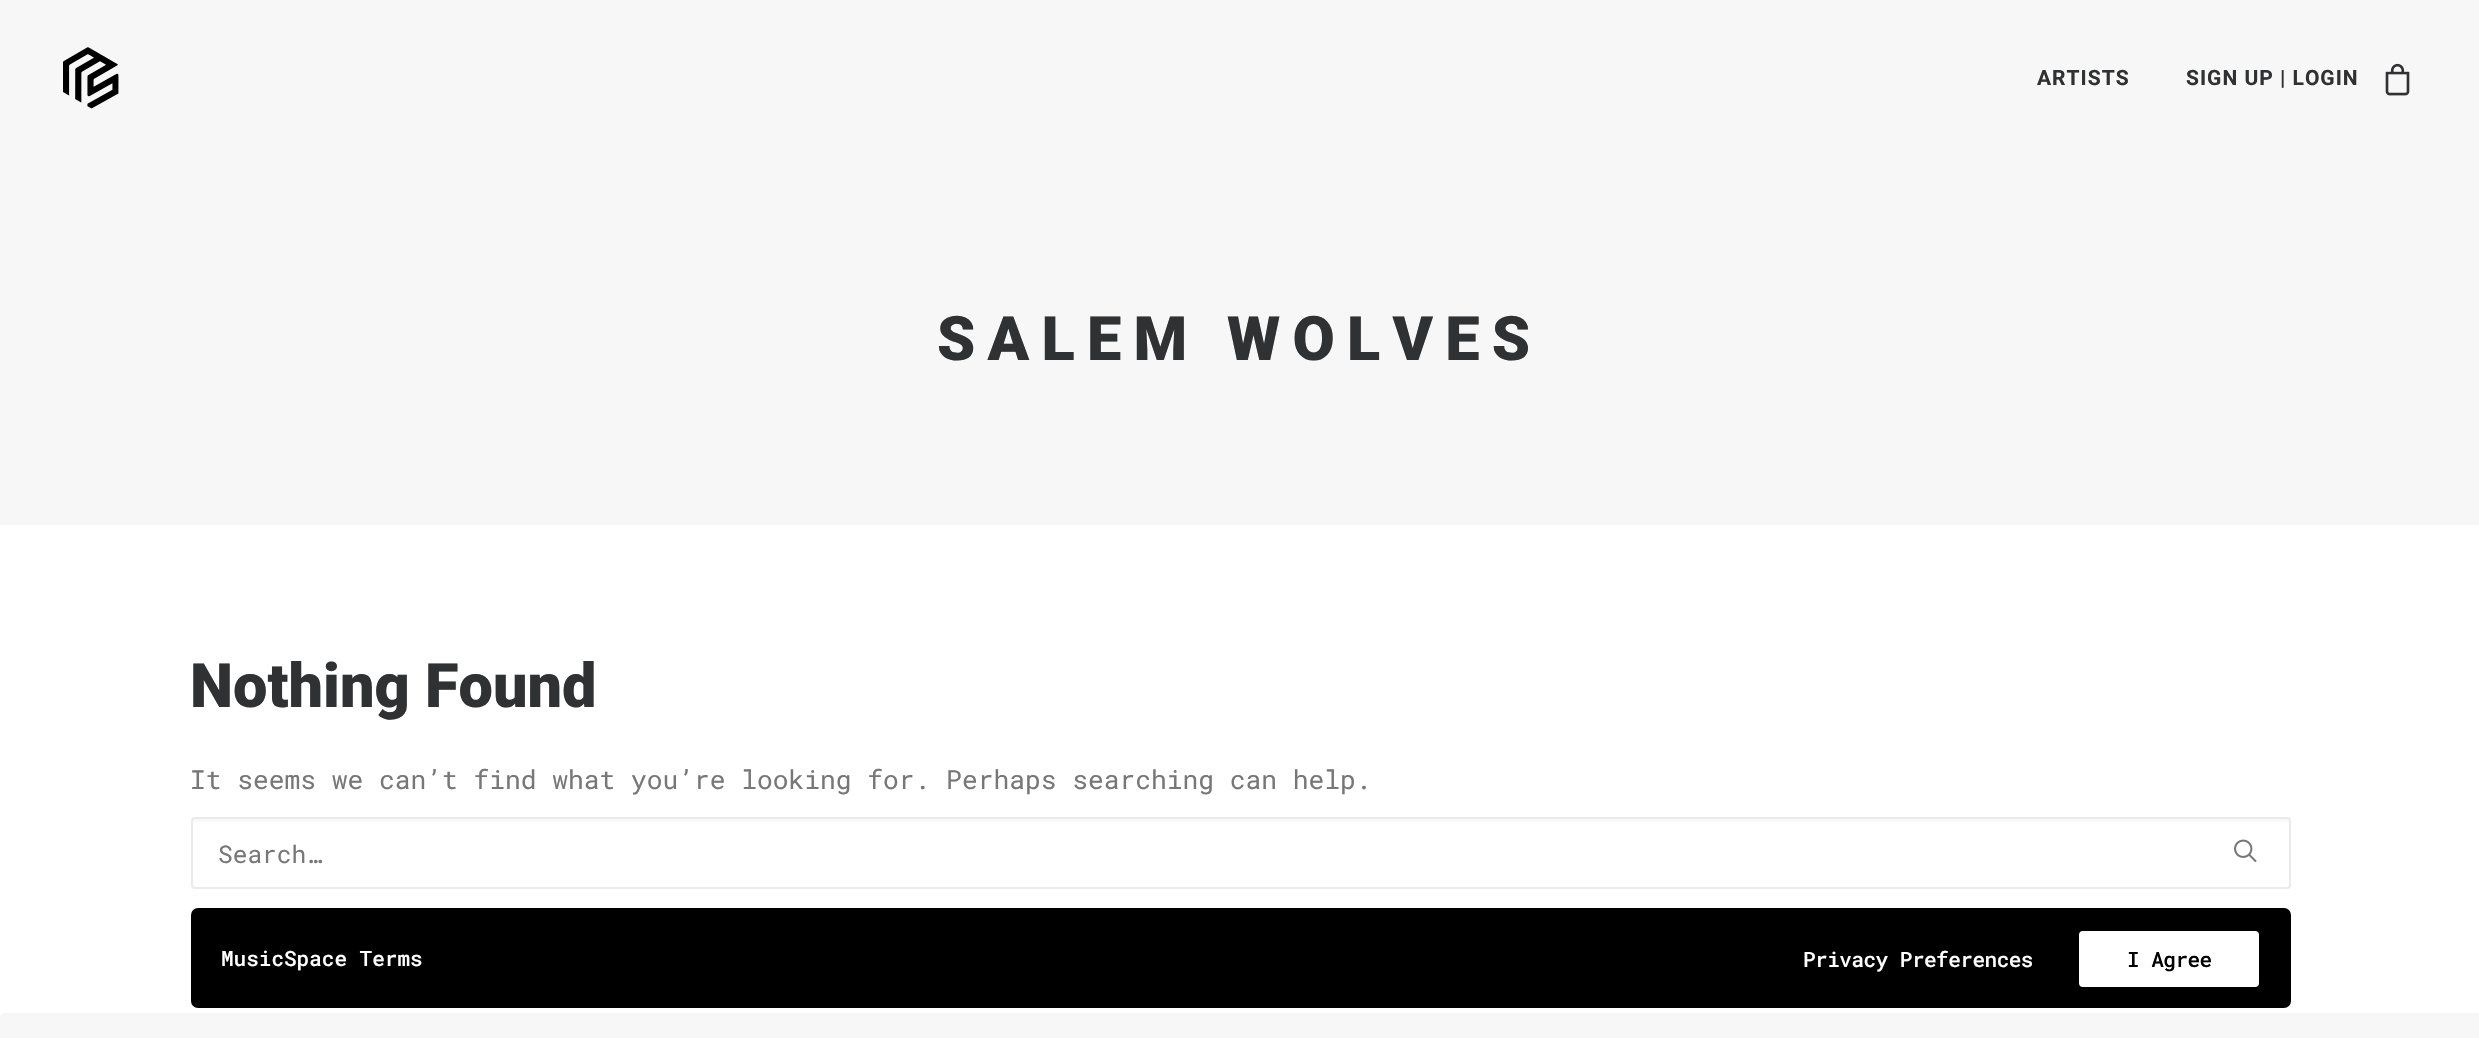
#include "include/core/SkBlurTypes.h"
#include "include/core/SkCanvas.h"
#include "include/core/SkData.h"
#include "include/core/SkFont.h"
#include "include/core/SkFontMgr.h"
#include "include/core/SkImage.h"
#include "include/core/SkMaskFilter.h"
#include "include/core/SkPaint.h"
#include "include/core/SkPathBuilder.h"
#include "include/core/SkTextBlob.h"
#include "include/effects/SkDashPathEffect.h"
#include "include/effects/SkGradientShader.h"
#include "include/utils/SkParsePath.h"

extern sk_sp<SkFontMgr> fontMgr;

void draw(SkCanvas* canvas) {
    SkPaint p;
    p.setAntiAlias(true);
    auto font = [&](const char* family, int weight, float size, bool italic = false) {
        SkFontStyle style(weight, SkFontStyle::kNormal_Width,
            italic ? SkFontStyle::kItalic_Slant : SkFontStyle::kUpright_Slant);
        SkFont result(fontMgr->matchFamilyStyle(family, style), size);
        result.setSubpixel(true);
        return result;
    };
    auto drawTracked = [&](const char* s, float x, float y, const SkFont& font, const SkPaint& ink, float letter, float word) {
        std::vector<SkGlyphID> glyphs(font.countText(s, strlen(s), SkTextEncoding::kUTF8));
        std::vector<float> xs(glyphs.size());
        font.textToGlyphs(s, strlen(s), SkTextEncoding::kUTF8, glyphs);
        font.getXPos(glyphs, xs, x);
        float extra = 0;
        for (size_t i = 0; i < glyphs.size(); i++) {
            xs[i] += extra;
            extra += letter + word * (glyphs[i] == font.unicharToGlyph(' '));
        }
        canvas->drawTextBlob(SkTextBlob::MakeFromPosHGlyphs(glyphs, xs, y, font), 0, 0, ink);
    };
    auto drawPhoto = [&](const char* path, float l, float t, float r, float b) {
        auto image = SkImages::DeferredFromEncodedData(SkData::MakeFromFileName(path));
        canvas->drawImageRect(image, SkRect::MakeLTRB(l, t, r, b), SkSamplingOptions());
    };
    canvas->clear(0xFFFFFFFF);
    p.setColor(0xFFF7F7F7);
    canvas->drawRect(SkRect::MakeLTRB(0, 0, 2479, 525), p);
    drawPhoto("media/1.png", 63, 47, 119, 109);
    auto font1 = font("Roboto", 700, 21);
    p.setColor(0xFF303133);
    drawTracked("ARTISTS", 2037, 85, font1, p, 1, 0);
    drawTracked("SIGN UP | LOGIN", 2186, 85, font1, p, 1, 0);
    drawPhoto("media/2.png", 2385, 63, 2410, 96);
    auto font2 = font("Roboto", 900, 61.25f);
    drawTracked("SALEM WOLVES", 937, 360, font2, p, 12.25f, 0);
    canvas->drawString("Nothing Found", 190, 707, font2, p);
    auto font3 = font("Roboto Mono", 400, 26.25f);
    p.setColor(0xFF777777);
    canvas->drawString("It seems we can’t find what you’re looking for. Perhaps searching can help.", 190, 789, font3, p);
    p.setColor(0xFFF9F9F9);
    canvas->drawPath(SkPathBuilder().moveTo(194, 822).lineTo(2287, 822).cubicTo(2288, 822, 2289, 823, 2289, 824).lineTo(2289, 821).cubicTo(2289, 820, 2288, 819, 2287, 819).lineTo(195, 819).cubicTo(194, 819, 193, 820, 193, 821).lineTo(193, 822).close().detach(), p);
    p.setStyle(SkPaint::kStroke_Style);
    p.setStrokeWidth(2);
    p.setColor(0xFFEAEAEA);
    canvas->drawRoundRect(SkRect::MakeLTRB(192, 818, 2290, 888), 3, 3, p);
    auto font4 = font("Roboto Mono", 400, 24.5f);
    p.setStyle(SkPaint::kFill_Style);
    p.setColor(0xFF777777);
    canvas->drawString("Search…", 218, 863, font4, p);
    drawPhoto("media/3.png", 2234, 839, 2257, 862);
    p.setColor(0xFFF7F7F7);
    canvas->drawRect(SkRect::MakeLTRB(0, 1015, 1641, 1038), p);
    canvas->save();
    canvas->clipRect(SkRect::MakeLTRB(2, 1013, 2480, 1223));
    canvas->drawPath(SkPathBuilder().moveTo(1, 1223).lineTo(1, 1013).lineTo(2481, 1013).lineTo(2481, 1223).cubicTo(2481, 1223, 1983, 1018, 1240, 1018).cubicTo(497, 1018, 1, 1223, 1, 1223).close().detach(), p);
    canvas->restore();
    p.setColor(0xFF000000);
    canvas->drawRoundRect(SkRect::MakeLTRB(191, 908, 2291, 1008), 7, 7, p);
    auto font5 = font("Roboto Mono", 500, 21);
    p.setColor(0xFFFFFFFF);
    canvas->drawString("MusicSpace Terms", 221, 966, font5, p);
    drawTracked("Privacy Preferences", 1803, 967, font5, p, -0.5f, 0);
    canvas->drawRoundRect(SkRect::MakeLTRB(2079, 931, 2259, 987), 4, 4, p);
    p.setColor(0xFF000000);
    drawTracked("I Agree", 2127, 967, font5, p, -0.5f, 0);
}
